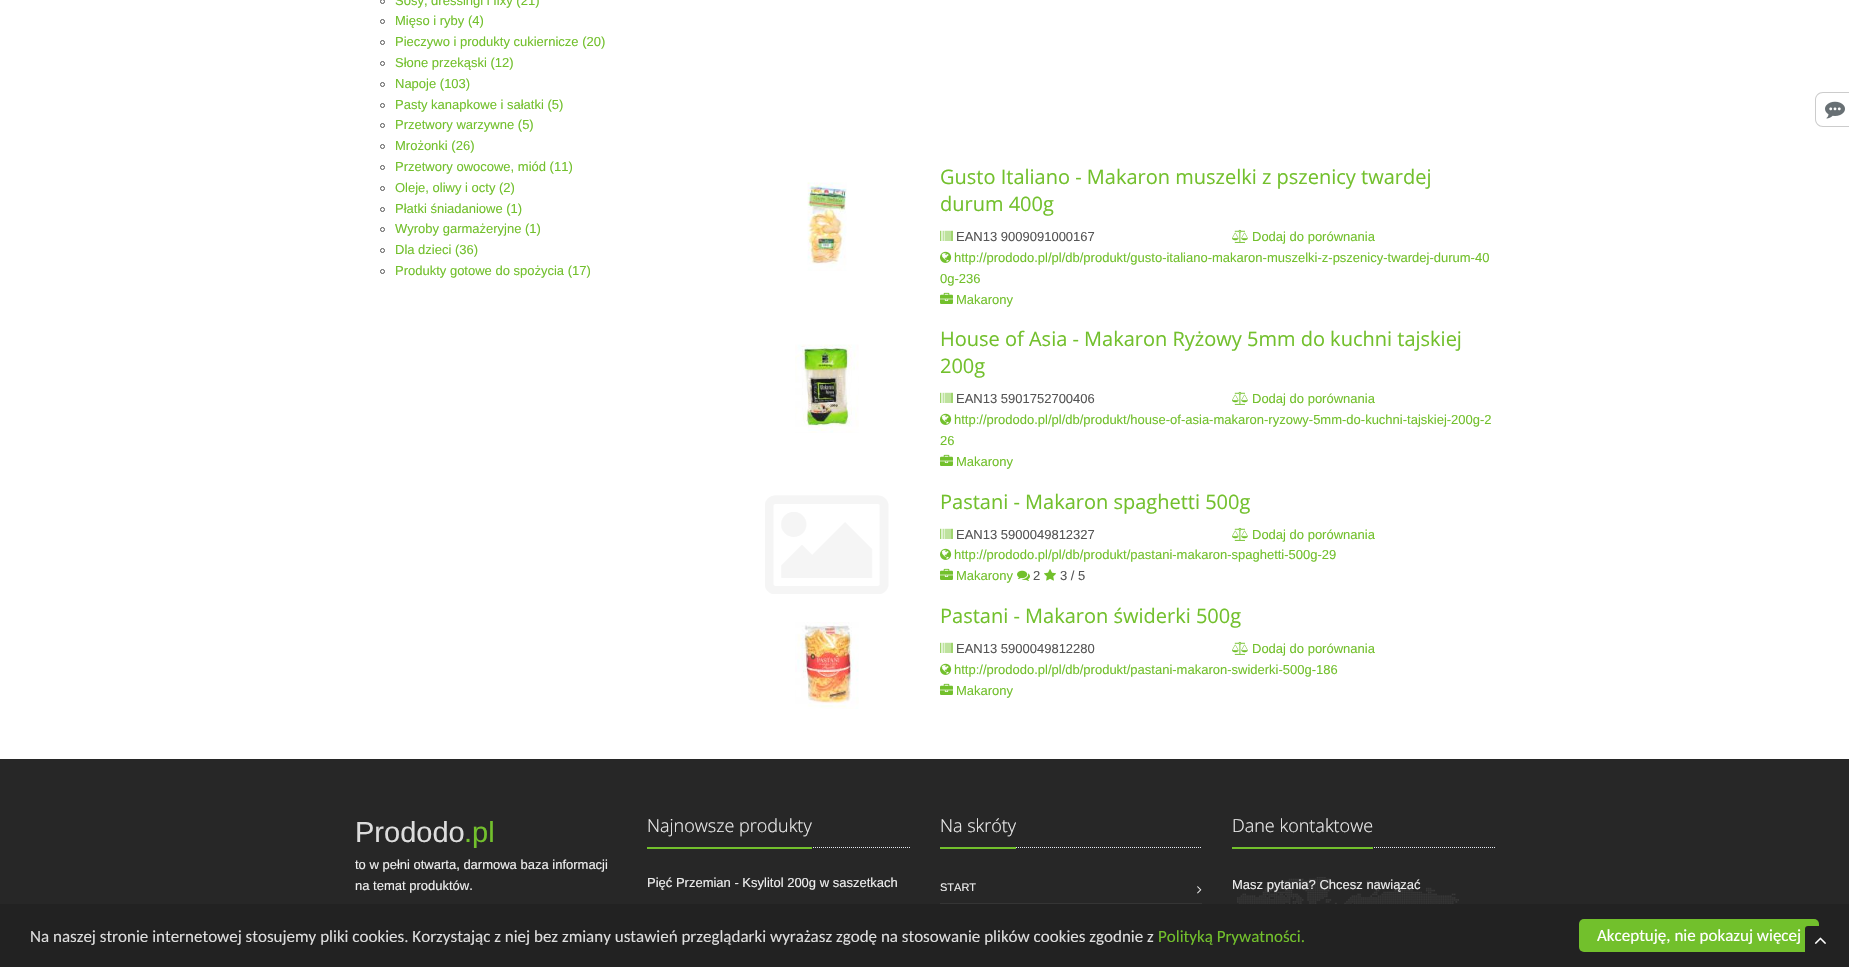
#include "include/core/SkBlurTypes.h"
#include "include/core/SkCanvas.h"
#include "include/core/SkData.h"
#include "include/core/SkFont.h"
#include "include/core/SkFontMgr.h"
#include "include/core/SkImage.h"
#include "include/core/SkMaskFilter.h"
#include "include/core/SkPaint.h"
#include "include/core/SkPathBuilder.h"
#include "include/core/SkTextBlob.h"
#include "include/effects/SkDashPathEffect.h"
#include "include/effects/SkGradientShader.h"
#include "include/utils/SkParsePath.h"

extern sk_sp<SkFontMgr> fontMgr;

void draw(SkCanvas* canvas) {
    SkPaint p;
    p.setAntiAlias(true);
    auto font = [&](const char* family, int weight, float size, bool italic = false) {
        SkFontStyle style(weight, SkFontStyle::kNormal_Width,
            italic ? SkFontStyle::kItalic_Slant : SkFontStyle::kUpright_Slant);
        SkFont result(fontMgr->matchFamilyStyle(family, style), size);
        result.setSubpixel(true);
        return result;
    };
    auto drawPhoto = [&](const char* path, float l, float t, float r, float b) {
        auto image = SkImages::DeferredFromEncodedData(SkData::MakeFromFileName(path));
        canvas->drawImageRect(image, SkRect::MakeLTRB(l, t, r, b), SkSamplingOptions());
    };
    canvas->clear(0xFFFFFFFF);
    p.setStyle(SkPaint::kStroke_Style);
    p.setStrokeWidth(1);
    p.setColor(0xFF555555);
    canvas->drawCircle(382.5f, 1.5f, 2, p);
    auto font1 = font("Liberation Sans", 400, 13);
    p.setStyle(SkPaint::kFill_Style);
    p.setColor(0xFF72C02C);
    canvas->drawString("Sosy, dressingi i fixy (21)", 395, 5, font1, p);
    p.setStyle(SkPaint::kStroke_Style);
    p.setColor(0xFF555555);
    canvas->drawCircle(382.5f, 21.5f, 2, p);
    p.setStyle(SkPaint::kFill_Style);
    p.setColor(0xFF72C02C);
    canvas->drawString("Mięso i ryby (4)", 395, 25, font1, p);
    p.setStyle(SkPaint::kStroke_Style);
    p.setColor(0xFF555555);
    canvas->drawCircle(382.5f, 42.5f, 2, p);
    p.setStyle(SkPaint::kFill_Style);
    p.setColor(0xFF72C02C);
    canvas->drawString("Pieczywo i produkty cukiernicze (20)", 395, 46, font1, p);
    p.setStyle(SkPaint::kStroke_Style);
    p.setColor(0xFF555555);
    canvas->drawCircle(382.5f, 63.5f, 2, p);
    p.setStyle(SkPaint::kFill_Style);
    p.setColor(0xFF72C02C);
    canvas->drawString("Słone przekąski (12)", 395, 67, font1, p);
    p.setStyle(SkPaint::kStroke_Style);
    p.setColor(0xFF555555);
    canvas->drawCircle(382.5f, 84.5f, 2, p);
    p.setStyle(SkPaint::kFill_Style);
    p.setColor(0xFF72C02C);
    canvas->drawString("Napoje (103)", 395, 88, font1, p);
    p.setStyle(SkPaint::kStroke_Style);
    p.setColor(0xFF555555);
    canvas->drawCircle(382.5f, 105.5f, 2, p);
    p.setStyle(SkPaint::kFill_Style);
    p.setColor(0xFF72C02C);
    canvas->drawString("Pasty kanapkowe i sałatki (5)", 395, 109, font1, p);
    p.setStyle(SkPaint::kStroke_Style);
    p.setColor(0xFF555555);
    canvas->drawCircle(382.5f, 125.5f, 2, p);
    p.setStyle(SkPaint::kFill_Style);
    p.setColor(0xFF72C02C);
    canvas->drawString("Przetwory warzywne (5)", 395, 129, font1, p);
    p.setStyle(SkPaint::kStroke_Style);
    p.setColor(0xFF555555);
    canvas->drawCircle(382.5f, 146.5f, 2, p);
    p.setStyle(SkPaint::kFill_Style);
    p.setColor(0xFF72C02C);
    canvas->drawString("Mrożonki (26)", 395, 150, font1, p);
    p.setStyle(SkPaint::kStroke_Style);
    p.setColor(0xFF555555);
    canvas->drawCircle(382.5f, 167.5f, 2, p);
    p.setStyle(SkPaint::kFill_Style);
    p.setColor(0xFF72C02C);
    canvas->drawString("Przetwory owocowe, miód (11)", 395, 171, font1, p);
    p.setStyle(SkPaint::kStroke_Style);
    p.setColor(0xFF555555);
    canvas->drawCircle(382.5f, 188.5f, 2, p);
    p.setStyle(SkPaint::kFill_Style);
    p.setColor(0xFF72C02C);
    canvas->drawString("Oleje, oliwy i octy (2)", 395, 192, font1, p);
    p.setStyle(SkPaint::kStroke_Style);
    p.setColor(0xFF555555);
    canvas->drawCircle(382.5f, 209.5f, 2, p);
    p.setStyle(SkPaint::kFill_Style);
    p.setColor(0xFF72C02C);
    canvas->drawString("Płatki śniadaniowe (1)", 395, 213, font1, p);
    p.setStyle(SkPaint::kStroke_Style);
    p.setColor(0xFF555555);
    canvas->drawCircle(382.5f, 229.5f, 2, p);
    p.setStyle(SkPaint::kFill_Style);
    p.setColor(0xFF72C02C);
    canvas->drawString("Wyroby garmażeryjne (1)", 395, 233, font1, p);
    p.setStyle(SkPaint::kStroke_Style);
    p.setColor(0xFF555555);
    canvas->drawCircle(382.5f, 250.5f, 2, p);
    p.setStyle(SkPaint::kFill_Style);
    p.setColor(0xFF72C02C);
    canvas->drawString("Dla dzieci (36)", 395, 254, font1, p);
    p.setStyle(SkPaint::kStroke_Style);
    p.setColor(0xFF555555);
    canvas->drawCircle(382.5f, 271.5f, 2, p);
    p.setStyle(SkPaint::kFill_Style);
    p.setColor(0xFF72C02C);
    canvas->drawString("Produkty gotowe do spożycia (17)", 395, 275, font1, p);
    drawPhoto("media/1.png", 807, 182, 847, 271);
    auto font2 = font("Open Sans", 400, 20);
    canvas->drawString("Gusto Italiano - Makaron muszelki z pszenicy twardej", 940, 184, font2, p);
    canvas->drawString("durum 400g", 940, 211, font2, p);
    drawPhoto("media/2.png", 940, 230, 953, 241);
    p.setColor(0xFF555555);
    canvas->drawString("EAN13 9009091000167", 956, 241, font1, p);
    drawPhoto("media/3.png", 1232, 229, 1248, 243);
    p.setColor(0xFF72C02C);
    canvas->drawString("Dodaj do porównania", 1252, 241, font1, p);
    drawPhoto("media/4.png", 940, 251, 952, 263);
    canvas->drawString("http://prododo.pl/pl/db/produkt/gusto-italiano-makaron-muszelki-z-pszenicy-twardej-durum-40", 954, 262, font1, p);
    canvas->drawString("0g-236", 940, 283, font1, p);
    drawPhoto("media/5.png", 940, 292, 953, 304);
    canvas->drawString("Makarony", 956, 304, font1, p);
    drawPhoto("media/6.png", 795, 344, 859, 433);
    canvas->drawString("House of Asia - Makaron Ryżowy 5mm do kuchni tajskiej", 940, 346, font2, p);
    canvas->drawString("200g", 940, 373, font2, p);
    drawPhoto("media/2.png", 940, 392, 953, 403);
    p.setColor(0xFF555555);
    canvas->drawString("EAN13 5901752700406", 956, 403, font1, p);
    drawPhoto("media/3.png", 1232, 391, 1248, 405);
    p.setColor(0xFF72C02C);
    canvas->drawString("Dodaj do porównania", 1252, 403, font1, p);
    drawPhoto("media/4.png", 940, 413, 952, 425);
    canvas->drawString("http://prododo.pl/pl/db/produkt/house-of-asia-makaron-ryzowy-5mm-do-kuchni-tajskiej-200g-2", 954, 424, font1, p);
    canvas->drawString("26", 940, 445, font1, p);
    drawPhoto("media/5.png", 940, 454, 953, 466);
    canvas->drawString("Makarony", 956, 466, font1, p);
    drawPhoto("media/7.png", 765, 495, 889, 594);
    canvas->drawString("Pastani - Makaron spaghetti 500g", 940, 509, font2, p);
    drawPhoto("media/2.png", 940, 528, 953, 539);
    p.setColor(0xFF555555);
    canvas->drawString("EAN13 5900049812327", 956, 539, font1, p);
    drawPhoto("media/3.png", 1232, 527, 1248, 541);
    p.setColor(0xFF72C02C);
    canvas->drawString("Dodaj do porównania", 1252, 539, font1, p);
    drawPhoto("media/4.png", 940, 548, 952, 560);
    canvas->drawString("http://prododo.pl/pl/db/produkt/pastani-makaron-spaghetti-500g-29", 954, 559, font1, p);
    drawPhoto("media/5.png", 940, 568, 953, 580);
    canvas->drawString("Makarony", 956, 580, font1, p);
    drawPhoto("media/8.png", 1017, 570, 1030, 581);
    p.setColor(0xFF555555);
    canvas->drawString("2", 1033, 580, font1, p);
    drawPhoto("media/9.png", 1044, 569, 1056, 581);
    canvas->drawString("3 / 5", 1060, 580, font1, p);
    drawPhoto("media/10.png", 795, 622, 859, 709);
    p.setColor(0xFF72C02C);
    canvas->drawString("Pastani - Makaron świderki 500g", 940, 623, font2, p);
    drawPhoto("media/2.png", 940, 642, 953, 653);
    p.setColor(0xFF555555);
    canvas->drawString("EAN13 5900049812280", 956, 653, font1, p);
    drawPhoto("media/3.png", 1232, 641, 1248, 655);
    p.setColor(0xFF72C02C);
    canvas->drawString("Dodaj do porównania", 1252, 653, font1, p);
    drawPhoto("media/4.png", 940, 663, 952, 675);
    canvas->drawString("http://prododo.pl/pl/db/produkt/pastani-makaron-swiderki-500g-186", 954, 674, font1, p);
    drawPhoto("media/5.png", 940, 683, 953, 695);
    canvas->drawString("Makarony", 956, 695, font1, p);
    p.setColor(0xFFCCCCCC);
    canvas->drawPath(SkPathBuilder(SkPathFillType::kEvenOdd).moveTo(1823, 92).lineTo(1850, 92).lineTo(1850, 127).lineTo(1823, 127).cubicTo(1818.5f, 127, 1815, 123.5f, 1815, 119).lineTo(1815, 100).cubicTo(1815, 95.5f, 1818.5f, 92, 1823, 92).close().moveTo(1823, 93).lineTo(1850, 93).lineTo(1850, 126).lineTo(1823, 126).cubicTo(1819, 126, 1816, 123, 1816, 119).lineTo(1816, 100).cubicTo(1816, 96, 1819, 93, 1823, 93).close().detach(), p);
    drawPhoto("media/11.png", 1825, 101, 1845, 119);
    p.setColor(0xFF272727);
    canvas->drawRect(SkRect::MakeLTRB(0, 759, 1849, 904), p);
    auto font3 = font("Liberation Sans", 400, 29);
    p.setColor(0xFFDDDDDD);
    canvas->drawString("Prododo", 355, 842, font3, p);
    p.setColor(0xFF72C02C);
    canvas->drawString(".pl", 464, 842, font3, p);
    p.setColor(0xFFEEEEEE);
    canvas->drawString("to w pełni otwarta, darmowa baza informacji", 355, 869, font1, p);
    canvas->drawString("na temat produktów.", 355, 890, font1, p);
    p.setStyle(SkPaint::kStroke_Style);
    p.setColor(0xFFE4E9F0);
    p.setPathEffect(SkDashPathEffect::Make({{1, 1}}, 0));
    canvas->drawPath(SkPathBuilder().moveTo(647, 847.5f).lineTo(910, 847.5f).detach(), p);
    p.setPathEffect(nullptr);
    p.setStyle(SkPaint::kFill_Style);
    p.setColor(0xFF72C02C);
    canvas->drawRect(SkRect::MakeLTRB(647, 847, 812, 849), p);
    auto font4 = font("Open Sans", 300, 18);
    p.setColor(0xFFEEEEEE);
    canvas->drawString("Najnowsze produkty", 647, 832, font4, p);
    canvas->drawString("Pięć Przemian - Ksylitol 200g w saszetkach", 647, 887, font1, p);
    p.setStyle(SkPaint::kStroke_Style);
    p.setColor(0xFFE4E9F0);
    p.setPathEffect(SkDashPathEffect::Make({{1, 1}}, 0));
    canvas->drawPath(SkPathBuilder().moveTo(940, 847.5f).lineTo(1202, 847.5f).detach(), p);
    p.setPathEffect(nullptr);
    p.setStyle(SkPaint::kFill_Style);
    p.setColor(0xFF72C02C);
    canvas->drawRect(SkRect::MakeLTRB(940, 847, 1016, 849), p);
    p.setColor(0xFFEEEEEE);
    canvas->drawString("Na skróty", 940, 832, font4, p);
    auto font5 = font("Liberation Sans", 400, 11);
    canvas->drawString("START", 940, 891, font5, p);
    drawPhoto("media/12.png", 1197, 886, 1202, 894);
    p.setColor(0xFF353535);
    canvas->drawRect(SkRect::MakeLTRB(940, 903, 1202, 904), p);
    drawPhoto("media/13.png", 1237, 877, 1459, 904);
    p.setStyle(SkPaint::kStroke_Style);
    p.setColor(0xFFE4E9F0);
    p.setPathEffect(SkDashPathEffect::Make({{1, 1}}, 0));
    canvas->drawPath(SkPathBuilder().moveTo(1232, 847.5f).lineTo(1495, 847.5f).detach(), p);
    p.setPathEffect(nullptr);
    p.setStyle(SkPaint::kFill_Style);
    p.setColor(0xFF72C02C);
    canvas->drawRect(SkRect::MakeLTRB(1232, 847, 1373, 849), p);
    p.setColor(0xFFEEEEEE);
    canvas->drawString("Dane kontaktowe", 1232, 832, font4, p);
    canvas->drawString("Masz pytania? Chcesz nawiązać", 1232, 889, font1, p);
    p.setColor(0xFF222222);
    canvas->drawRect(SkRect::MakeLTRB(0, 904, 1849, 967), p);
    auto font6 = font("Carlito", 400, 17);
    p.setColor(0xFFDDDDDD);
    canvas->drawString("Na naszej stronie internetowej stosujemy pliki cookies. Korzystając z niej bez zmiany ustawień przeglądarki wyrażasz zgodę na stosowanie plików cookies zgodnie z", 30, 942, font6, p);
    p.setColor(0xFF72C02C);
    canvas->drawString("Polityką Prywatności.", 1158, 942, font6, p);
    canvas->drawRoundRect(SkRect::MakeLTRB(1579, 919, 1819, 952), 5, 5, p);
    p.setColor(0xFFFFFFFF);
    canvas->drawString("Akceptuję, nie pokazuj więcej", 1597, 941, font6, p);
    p.setColor(0xFF222222);
    canvas->drawRoundRect(SkRect::MakeLTRB(1805, 926, 1835, 956), 3, 3, p);
    drawPhoto("media/14.png", 1814, 937, 1826, 944);
}
